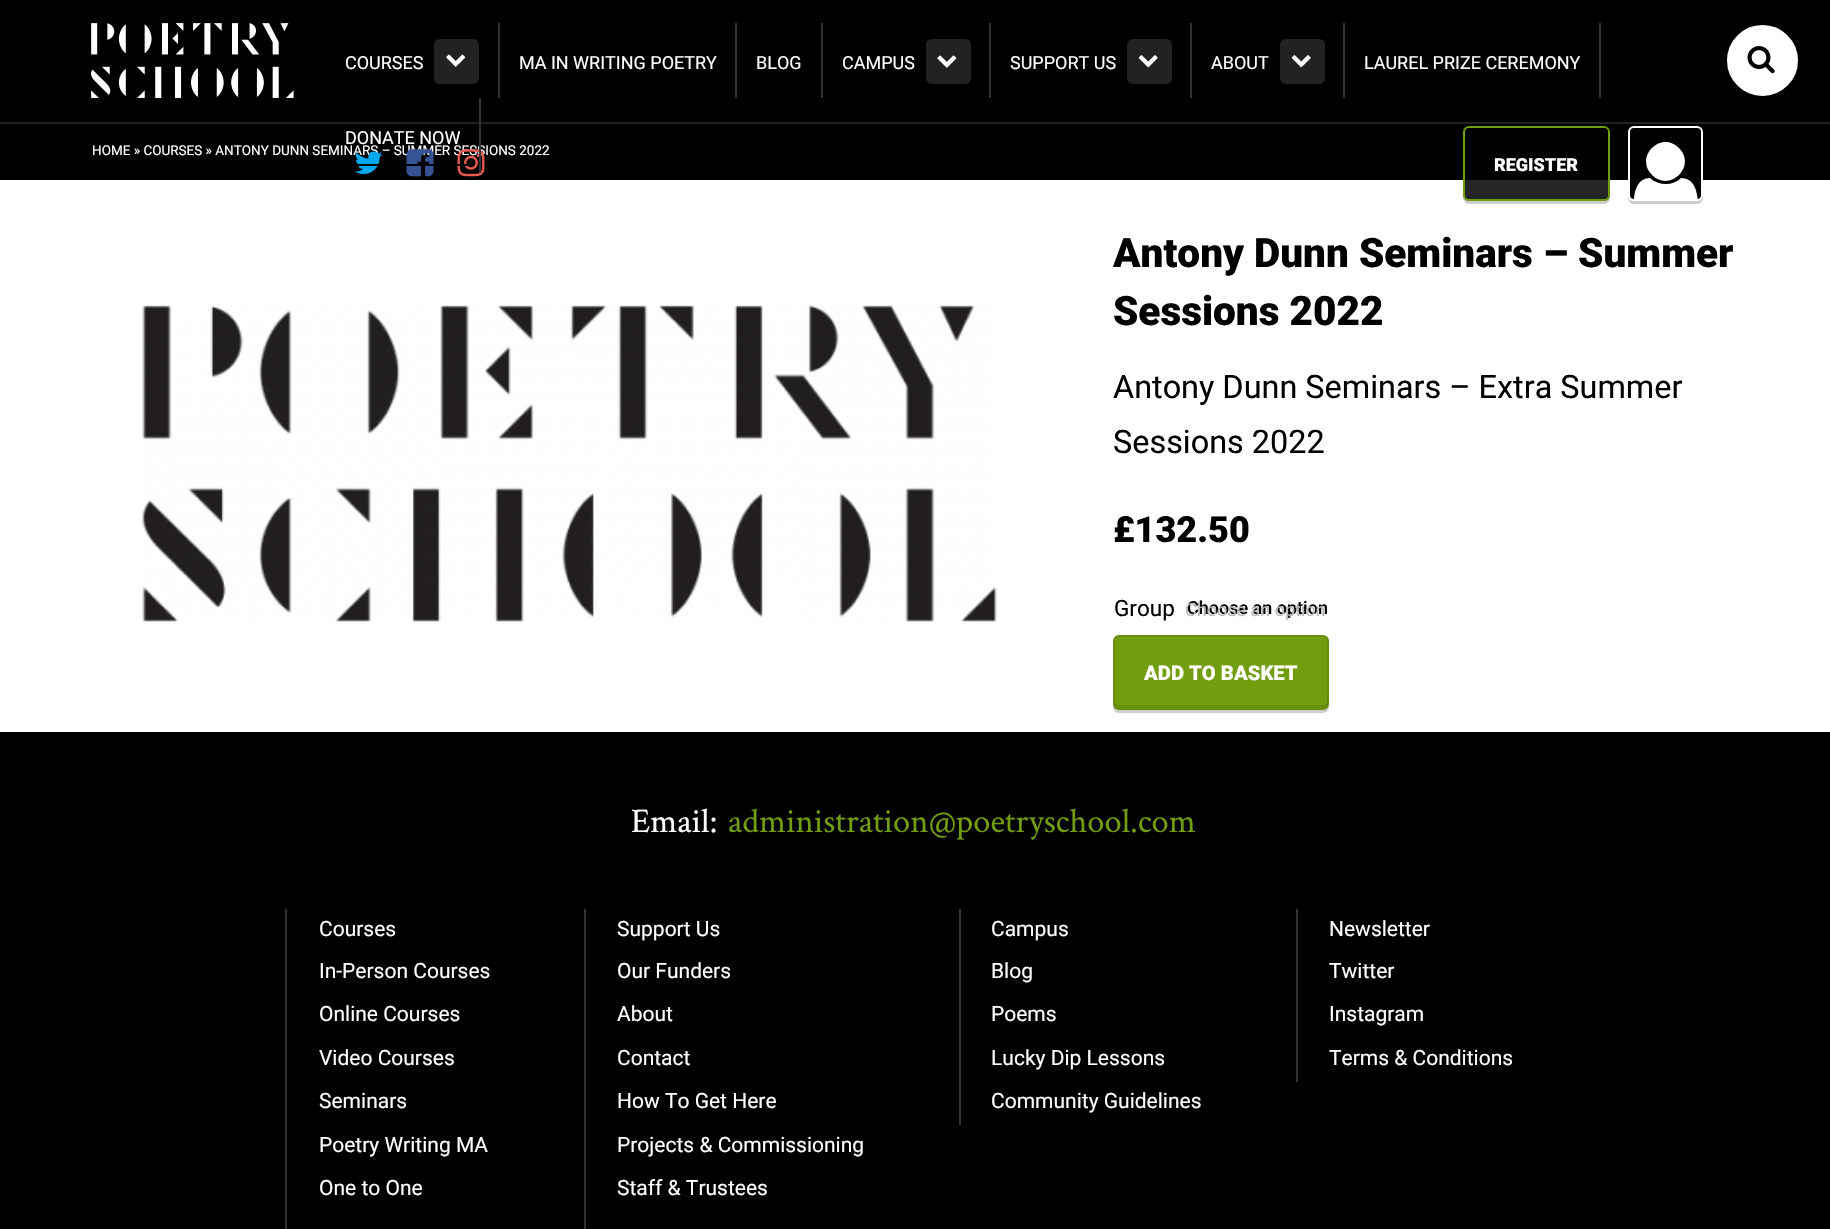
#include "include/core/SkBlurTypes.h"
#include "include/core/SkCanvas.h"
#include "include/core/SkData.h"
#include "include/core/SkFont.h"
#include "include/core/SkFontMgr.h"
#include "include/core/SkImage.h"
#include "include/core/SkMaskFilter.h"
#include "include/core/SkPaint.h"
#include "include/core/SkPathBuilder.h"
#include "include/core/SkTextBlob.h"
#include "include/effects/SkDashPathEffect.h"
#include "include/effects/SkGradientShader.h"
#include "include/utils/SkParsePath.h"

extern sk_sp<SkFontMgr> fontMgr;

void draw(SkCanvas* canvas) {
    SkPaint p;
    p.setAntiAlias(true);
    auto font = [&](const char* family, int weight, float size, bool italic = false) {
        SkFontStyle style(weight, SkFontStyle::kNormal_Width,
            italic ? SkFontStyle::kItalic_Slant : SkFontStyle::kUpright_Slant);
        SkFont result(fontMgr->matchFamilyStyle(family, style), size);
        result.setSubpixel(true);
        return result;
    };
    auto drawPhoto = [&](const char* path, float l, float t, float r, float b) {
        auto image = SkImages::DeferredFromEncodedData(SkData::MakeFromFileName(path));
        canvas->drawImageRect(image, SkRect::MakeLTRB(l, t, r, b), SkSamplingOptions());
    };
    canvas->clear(0xFFFFFFFF);
    p.setColor(0xFF000000);
    canvas->drawRect(SkRect::MakeLTRB(0, 0, 1830, 122), p);
    p.setColor(0xFF222222);
    canvas->drawRect(SkRect::MakeLTRB(0, 122, 1830, 124), p);
    drawPhoto("media/1.png", 91, 23, 294, 98);
    p.setColor(0xFF333333);
    canvas->drawRect(SkRect::MakeLTRB(498, 23, 500, 98), p);
    auto font1 = font("Roboto", 400, 18);
    p.setColor(0xFFFFFFFF);
    canvas->drawString("COURSES", 345, 69, font1, p);
    p.setColor(0xFF222222);
    canvas->drawRoundRect(SkRect::MakeLTRB(434, 39, 479, 84), 6, 6, p);
    drawPhoto("media/2.png", 446, 54, 466, 67);
    p.setColor(0xFF333333);
    canvas->drawRect(SkRect::MakeLTRB(735, 23, 737, 98), p);
    p.setColor(0xFFFFFFFF);
    canvas->drawString("MA IN WRITING POETRY", 519, 69, font1, p);
    p.setColor(0xFF333333);
    canvas->drawRect(SkRect::MakeLTRB(821, 23, 823, 98), p);
    p.setColor(0xFFFFFFFF);
    canvas->drawString("BLOG", 756, 69, font1, p);
    p.setColor(0xFF333333);
    canvas->drawRect(SkRect::MakeLTRB(989, 23, 991, 98), p);
    p.setColor(0xFFFFFFFF);
    canvas->drawString("CAMPUS", 842, 69, font1, p);
    p.setColor(0xFF222222);
    canvas->drawRoundRect(SkRect::MakeLTRB(926, 39, 971, 84), 6, 6, p);
    drawPhoto("media/3.png", 937, 55, 957, 68);
    p.setColor(0xFF333333);
    canvas->drawRect(SkRect::MakeLTRB(1190, 23, 1192, 98), p);
    p.setColor(0xFFFFFFFF);
    canvas->drawString("SUPPORT US", 1010, 69, font1, p);
    p.setColor(0xFF222222);
    canvas->drawRoundRect(SkRect::MakeLTRB(1127, 39, 1172, 84), 6, 6, p);
    drawPhoto("media/4.png", 1138, 55, 1158, 68);
    p.setColor(0xFF333333);
    canvas->drawRect(SkRect::MakeLTRB(1343, 23, 1345, 98), p);
    p.setColor(0xFFFFFFFF);
    canvas->drawString("ABOUT", 1211, 69, font1, p);
    p.setColor(0xFF222222);
    canvas->drawRoundRect(SkRect::MakeLTRB(1280, 39, 1325, 84), 6, 6, p);
    drawPhoto("media/5.png", 1291, 55, 1311, 68);
    p.setColor(0xFF333333);
    canvas->drawRect(SkRect::MakeLTRB(1599, 23, 1601, 98), p);
    p.setColor(0xFFFFFFFF);
    canvas->drawString("LAUREL PRIZE CEREMONY", 1364, 69, font1, p);
    p.setColor(0xFF000000);
    canvas->drawRect(SkRect::MakeLTRB(0, 124, 1830, 180), p);
    auto font2 = font("Roboto", 400, 13.5f);
    p.setColor(0xFFFFFFFF);
    canvas->drawString("HOME » COURSES » ANTONY DUNN SEMINARS – SUMMER SESSIONS 2022", 92, 155, font2, p);
    drawPhoto("media/9.png", 457, 149, 485, 177);
    p.setColor(0xFF333333);
    canvas->drawRect(SkRect::MakeLTRB(479, 98, 481, 173), p);
    drawPhoto("media/7.png", 355, 151, 383, 174);
    drawPhoto("media/8.png", 406, 149, 434, 177);
    p.setColor(0xFF000000);
    canvas->drawRect(SkRect::MakeLTRB(357, 164, 468, 166), p);
    p.setColor(0xFFFFFFFF);
    canvas->drawString("DONATE NOW", 345, 144, font1, p);
    canvas->drawCircle(1762.5f, 60.5f, 36.5f, p);
    p.setStyle(SkPaint::kStroke_Style);
    p.setStrokeWidth(2);
    p.setColor(0xFF000000);
    canvas->drawCircle(1762.5f, 60.5f, 36.5f, p);
    drawPhoto("media/6.png", 1747, 46, 1775, 74);
    p.setStyle(SkPaint::kFill_Style);
    p.setColor(0xFFCCCCCC);
    canvas->drawPath(SkPathBuilder().moveTo(1463, 197).lineTo(1463, 198).cubicTo(1463, 201, 1466, 204, 1469, 204).lineTo(1604, 204).cubicTo(1607, 204, 1610, 201, 1610, 198).lineTo(1610, 135).lineTo(1610, 133).lineTo(1610, 195).cubicTo(1610, 198, 1607, 201, 1604, 201).lineTo(1468, 201).cubicTo(1466, 201, 1464, 200, 1463, 197).close().detach(), p);
    p.setColor(0xD9000000);
    canvas->drawRoundRect(SkRect::MakeLTRB(1463, 126, 1610, 201), 6, 6, p);
    p.setColor(0xFF222222);
    canvas->drawPath(SkPathBuilder().moveTo(1464, 192).lineTo(1464, 195).cubicTo(1464, 198, 1466, 200, 1469, 200).lineTo(1603, 200).cubicTo(1606, 200, 1608, 198, 1608, 195).lineTo(1608, 192).lineTo(1607, 195).lineTo(1604, 196).lineTo(1468, 196).cubicTo(1466, 196, 1464, 194, 1464, 192).close().detach(), p);
    p.setStyle(SkPaint::kStroke_Style);
    p.setColor(0xFF719D0F);
    canvas->drawRoundRect(SkRect::MakeLTRB(1464, 127, 1609, 200), 5, 5, p);
    auto font3 = font("Roboto", 900, 18);
    p.setStyle(SkPaint::kFill_Style);
    p.setColor(0xFFFFFFFF);
    canvas->drawString("REGISTER", 1494, 171, font3, p);
    p.setColor(0x33000000);
    canvas->drawPath(SkPathBuilder().moveTo(1628, 197).lineTo(1628, 198).cubicTo(1628, 201, 1631, 204, 1634, 204).lineTo(1697, 204).cubicTo(1700, 204, 1703, 201, 1703, 198).lineTo(1703, 135).lineTo(1702, 133).lineTo(1702, 195).cubicTo(1702, 198, 1700, 201, 1696, 201).lineTo(1634, 201).cubicTo(1631, 201, 1629, 200, 1628, 197).close().detach(), p);
    p.setColor(0xFF000000);
    canvas->drawRoundRect(SkRect::MakeLTRB(1629, 127, 1702, 200), 5, 5, p);
    p.setStyle(SkPaint::kStroke_Style);
    p.setColor(0xFFFFFFFF);
    canvas->drawRoundRect(SkRect::MakeLTRB(1629, 127, 1702, 200), 5, 5, p);
    canvas->save();
    canvas->clipRect(SkRect::MakeLTRB(1629, 128, 1701, 200));
    p.setStyle(SkPaint::kFill_Style);
    canvas->drawPath(SkPathBuilder().moveTo(1698, 206).cubicTo(1698, 211, 1695, 218, 1689, 219).lineTo(1651, 219).cubicTo(1649, 219, 1644, 220, 1641, 219).cubicTo(1638, 218, 1635, 214, 1634, 211).cubicTo(1633, 208, 1633, 204, 1634, 201).cubicTo(1634, 191, 1638, 178, 1650, 178).cubicTo(1659, 186, 1673, 186, 1681, 178).cubicTo(1696, 178, 1698, 195, 1698, 206).close().moveTo(1679, 148).cubicTo(1697, 166, 1670, 193, 1652, 175).cubicTo(1634, 157, 1661, 130, 1679, 148).close().detach(), p);
    canvas->restore();
    drawPhoto("media/10.png", 142, 305, 997, 622);
    auto font4 = font("Roboto", 900, 40.5f);
    p.setColor(0xFF000000);
    canvas->drawString("Antony Dunn Seminars – Summer", 1113, 267, font4, p);
    canvas->drawString("Sessions 2022", 1113, 325, font4, p);
    auto font5 = font("Roboto", 400, 32.4f);
    canvas->drawString("Antony Dunn Seminars – Extra Summer", 1113, 398, font5, p);
    canvas->drawString("Sessions 2022", 1113, 453, font5, p);
    auto font6 = font("Roboto", 900, 36);
    canvas->drawString("£132.50", 1113, 542, font6, p);
    auto font7 = font("Roboto", 400, 22.5f);
    canvas->drawString("Group", 1114, 616, font7, p);
    auto font8 = font("Roboto", 500, 18);
    canvas->drawString("Choose an option", 1187, 614, font8, p);
    p.setColor(0xFFB8B8B8);
    canvas->drawString("Choose an option", 1185, 616, font1, p);
    p.setColor(0xFFCCCCCC);
    canvas->drawPath(SkPathBuilder().moveTo(1113, 704).lineTo(1113, 707).cubicTo(1113, 710, 1116, 713, 1119, 713).lineTo(1323, 713).cubicTo(1326, 713, 1329, 710, 1329, 707).lineTo(1329, 704).cubicTo(1329, 707, 1326, 710, 1323, 710).lineTo(1119, 710).cubicTo(1116, 710, 1113, 707, 1113, 704).close().detach(), p);
    p.setColor(0xFF719D0F);
    canvas->drawRoundRect(SkRect::MakeLTRB(1113, 635, 1329, 710), 6, 6, p);
    p.setColor(0xFF668D0E);
    canvas->drawPath(SkPathBuilder().moveTo(1115, 703).cubicTo(1115, 706, 1117, 708, 1120, 708).lineTo(1323, 708).cubicTo(1326, 708, 1328, 706, 1328, 703).lineTo(1328, 700).cubicTo(1328, 703, 1325, 705, 1323, 705).lineTo(1119, 705).cubicTo(1118, 705, 1116, 704, 1115, 703).close().detach(), p);
    p.setStyle(SkPaint::kStroke_Style);
    p.setColor(0x1A000000);
    canvas->drawRoundRect(SkRect::MakeLTRB(1114, 636, 1328, 709), 5, 5, p);
    auto font9 = font("Roboto", 900, 20.25f);
    p.setStyle(SkPaint::kFill_Style);
    p.setColor(0xFFFFFFFF);
    canvas->drawString("ADD TO BASKET", 1144, 680, font9, p);
    p.setColor(0xFF000000);
    canvas->drawRect(SkRect::MakeLTRB(0, 732, 1830, 1229), p);
    auto font10 = font("Crimson Text", 400, 34.5f);
    p.setColor(0xFFFFFFFF);
    canvas->drawString("Email:", 631, 832, font10, p);
    p.setColor(0xFF719D0F);
    canvas->drawString("administration@poetryschool.com", 728, 832, font10, p);
    p.setColor(0xFF333333);
    canvas->drawRect(SkRect::MakeLTRB(285, 909, 287, 1229), p);
    auto font11 = font("Roboto", 400, 21);
    p.setColor(0xFFFFFFFF);
    {
        const struct { const char* s; float x, y; } items[] = {
            {"Courses", 319, 936},
            {"In-Person Courses", 319, 978},
            {"Online Courses", 319, 1021},
            {"Video Courses", 319, 1065},
            {"Seminars", 319, 1108},
            {"Poetry Writing MA", 319, 1152},
            {"One to One", 319, 1195},
        };
        for (auto [s, x, y] : items) {
            canvas->drawString(s, x, y, font11, p);
        }
    }
    p.setColor(0xFF333333);
    canvas->drawRect(SkRect::MakeLTRB(584, 909, 586, 1229), p);
    p.setColor(0xFFFFFFFF);
    {
        const struct { const char* s; float x, y; } items[] = {
            {"Support Us", 617, 936},
            {"Our Funders", 617, 978},
            {"About", 617, 1021},
            {"Contact", 617, 1065},
            {"How To Get Here", 617, 1108},
            {"Projects & Commissioning", 617, 1152},
            {"Staff & Trustees", 617, 1195},
        };
        for (auto [s, x, y] : items) {
            canvas->drawString(s, x, y, font11, p);
        }
    }
    p.setColor(0xFF333333);
    canvas->drawRect(SkRect::MakeLTRB(959, 909, 961, 1125), p);
    p.setColor(0xFFFFFFFF);
    {
        const struct { const char* s; float x, y; } items[] = {
            {"Campus", 991, 936},
            {"Blog", 991, 978},
            {"Poems", 991, 1021},
            {"Lucky Dip Lessons", 991, 1065},
            {"Community Guidelines", 991, 1108},
        };
        for (auto [s, x, y] : items) {
            canvas->drawString(s, x, y, font11, p);
        }
    }
    p.setColor(0xFF333333);
    canvas->drawRect(SkRect::MakeLTRB(1296, 909, 1298, 1082), p);
    p.setColor(0xFFFFFFFF);
    {
        const struct { const char* s; float x, y; } items[] = {
            {"Newsletter", 1329, 936},
            {"Twitter", 1329, 978},
            {"Instagram", 1329, 1021},
            {"Terms & Conditions", 1329, 1065},
        };
        for (auto [s, x, y] : items) {
            canvas->drawString(s, x, y, font11, p);
        }
    }
}
